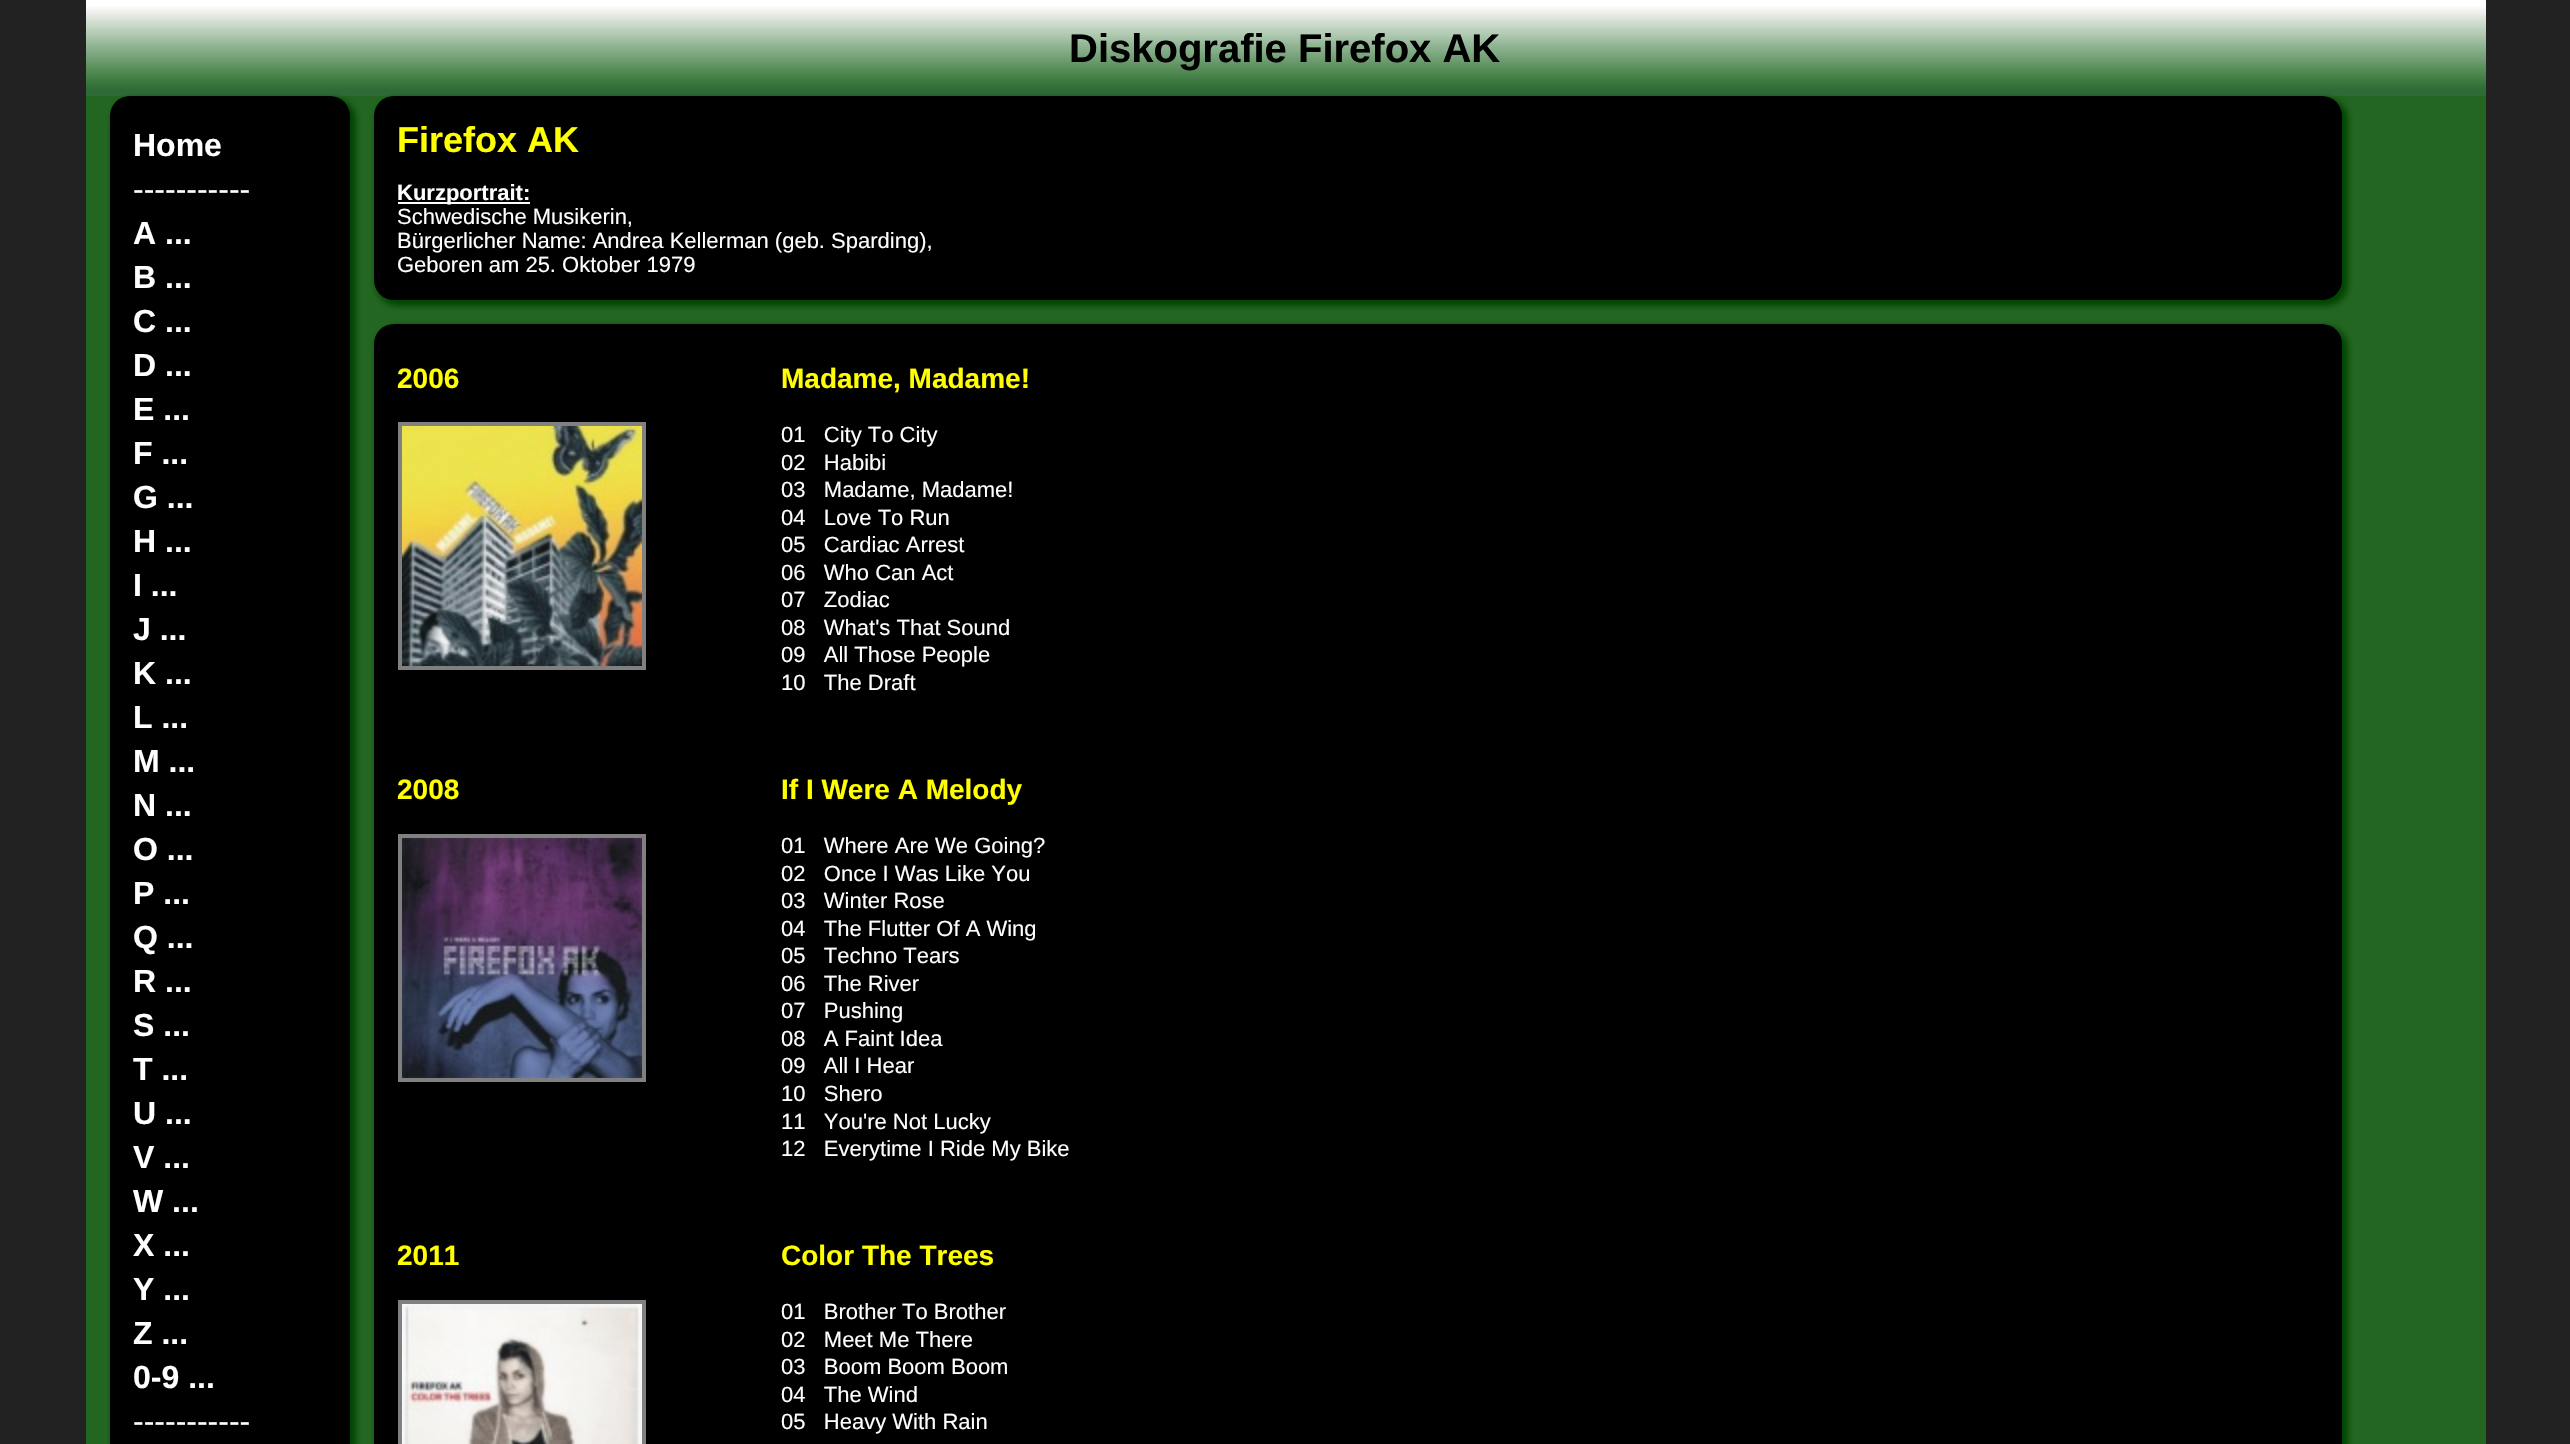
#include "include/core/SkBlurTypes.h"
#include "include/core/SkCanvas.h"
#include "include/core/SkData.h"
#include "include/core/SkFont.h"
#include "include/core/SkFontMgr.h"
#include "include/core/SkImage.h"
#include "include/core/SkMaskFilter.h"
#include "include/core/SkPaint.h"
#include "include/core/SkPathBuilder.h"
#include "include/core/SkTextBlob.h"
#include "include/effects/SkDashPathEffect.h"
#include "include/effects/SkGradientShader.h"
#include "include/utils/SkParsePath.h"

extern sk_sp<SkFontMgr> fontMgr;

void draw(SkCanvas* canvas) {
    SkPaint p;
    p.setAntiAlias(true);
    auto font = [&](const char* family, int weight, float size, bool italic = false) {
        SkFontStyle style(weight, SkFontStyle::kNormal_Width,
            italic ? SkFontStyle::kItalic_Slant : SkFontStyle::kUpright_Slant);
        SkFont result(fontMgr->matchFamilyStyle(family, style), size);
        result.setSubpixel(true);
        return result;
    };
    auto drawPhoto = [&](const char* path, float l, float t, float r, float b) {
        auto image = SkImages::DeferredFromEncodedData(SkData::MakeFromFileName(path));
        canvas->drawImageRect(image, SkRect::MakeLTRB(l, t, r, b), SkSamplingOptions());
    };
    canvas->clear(0xFF222222);
    p.setColor(0xFF226622);
    canvas->drawRect(SkRect::MakeLTRB(86, 96, 2486, 1444), p);
    drawPhoto("media/1.png", 86, 0, 2486, 96);
    auto font1 = font("Liberation Sans", 700, 40);
    p.setColor(0xFF000000);
    canvas->drawString("Diskografie Firefox AK", 1069, 62, font1, p);
    p.setColor(0xFF004400);
    p.setMaskFilter(SkMaskFilter::MakeBlur(kNormal_SkBlurStyle, 3));
    canvas->drawRoundRect(SkRect::MakeLTRB(112, 98, 356, 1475), 22, 22, p);
    p.setMaskFilter(nullptr);
    p.setColor(0xFF000000);
    canvas->drawRoundRect(SkRect::MakeLTRB(110, 96, 350, 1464), 20, 20, p);
    auto font2 = font("Liberation Sans", 700, 32);
    p.setColor(0xFFFFFFFF);
    canvas->drawString("Home", 133, 156, font2, p);
    auto font3 = font("Liberation Sans", 400, 32);
    canvas->drawString("-----------", 133, 200, font3, p);
    {
        const struct { const char* s; float x, y; } items[] = {
            {"A ...", 133, 244},
            {"B ...", 133, 288},
            {"C ...", 133, 332},
            {"D ...", 133, 376},
            {"E ...", 133, 420},
            {"F ...", 133, 464},
            {"G ...", 133, 508},
            {"H ...", 133, 552},
            {"I ...", 133, 596},
            {"J ...", 133, 640},
            {"K ...", 133, 684},
            {"L ...", 133, 728},
            {"M ...", 133, 772},
            {"N ...", 133, 816},
            {"O ...", 133, 860},
            {"P ...", 133, 904},
            {"Q ...", 133, 948},
            {"R ...", 133, 992},
            {"S ...", 133, 1036},
            {"T ...", 133, 1080},
            {"U ...", 133, 1124},
            {"V ...", 133, 1168},
            {"W ...", 133, 1212},
            {"X ...", 133, 1256},
            {"Y ...", 133, 1300},
            {"Z ...", 133, 1344},
            {"0-9 ...", 133, 1388},
        };
        for (auto [s, x, y] : items) {
            canvas->drawString(s, x, y, font2, p);
        }
    }
    canvas->drawString("-----------", 133, 1432, font3, p);
    p.setColor(0xFF004400);
    p.setMaskFilter(SkMaskFilter::MakeBlur(kNormal_SkBlurStyle, 3));
    canvas->drawRoundRect(SkRect::MakeLTRB(376, 98, 2348, 306), 22, 22, p);
    p.setMaskFilter(nullptr);
    p.setColor(0xFF000000);
    canvas->drawRoundRect(SkRect::MakeLTRB(374, 96, 2342, 300), 20, 20, p);
    auto font4 = font("Liberation Sans", 700, 36);
    p.setColor(0xFFFFFF00);
    canvas->drawString("Firefox AK", 397, 152, font4, p);
    p.setColor(0xFFFFFFFF);
    canvas->drawRect(SkRect::MakeLTRB(398, 202, 530, 204), p);
    auto font5 = font("Liberation Sans", 700, 22);
    canvas->drawString("Kurzportrait:", 397, 200, font5, p);
    auto font6 = font("Liberation Sans", 400, 22);
    {
        const struct { const char* s; float x, y; } items[] = {
            {"Schwedische Musikerin,", 397, 224},
            {"Bürgerlicher Name: Andrea Kellerman (geb. Sparding),", 397, 248},
            {"Geboren am 25. Oktober 1979", 397, 272},
        };
        for (auto [s, x, y] : items) {
            canvas->drawString(s, x, y, font6, p);
        }
    }
    p.setColor(0xFF004400);
    p.setMaskFilter(SkMaskFilter::MakeBlur(kNormal_SkBlurStyle, 3));
    canvas->drawRoundRect(SkRect::MakeLTRB(376, 326, 2348, 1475), 22, 22, p);
    p.setMaskFilter(nullptr);
    p.setColor(0xFF000000);
    canvas->drawRoundRect(SkRect::MakeLTRB(374, 324, 2342, 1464), 20, 20, p);
    auto font7 = font("Liberation Sans", 700, 28);
    p.setColor(0xFFFFFF00);
    canvas->drawString("2006", 397, 388, font7, p);
    canvas->drawString("Madame, Madame!", 781, 388, font7, p);
    p.setStyle(SkPaint::kStroke_Style);
    p.setStrokeWidth(4);
    p.setColor(0xFF808080);
    canvas->drawRect(SkRect::MakeLTRB(400, 424, 644, 668), p);
    drawPhoto("media/2.png", 402, 426, 642, 666);
    p.setStyle(SkPaint::kFill_Style);
    p.setColor(0xFFFFFFFF);
    {
        const struct { const char* s; float x, y; } items[] = {
            {"01   City To City", 781, 442},
            {"02   Habibi", 781, 470},
            {"03   Madame, Madame!", 781, 497},
            {"04   Love To Run", 781, 525},
            {"05   Cardiac Arrest", 781, 552},
            {"06   Who Can Act", 781, 580},
            {"07   Zodiac", 781, 607},
            {"08   What's That Sound", 781, 635},
            {"09   All Those People", 781, 662},
            {"10   The Draft", 781, 690},
        };
        for (auto [s, x, y] : items) {
            canvas->drawString(s, x, y, font6, p);
        }
    }
    p.setColor(0xFFFFFF00);
    canvas->drawString("2008", 397, 799, font7, p);
    canvas->drawString("If I Were A Melody", 781, 799, font7, p);
    p.setStyle(SkPaint::kStroke_Style);
    p.setColor(0xFF808080);
    canvas->drawRect(SkRect::MakeLTRB(400, 836, 644, 1080), p);
    drawPhoto("media/3.png", 402, 838, 642, 1078);
    p.setStyle(SkPaint::kFill_Style);
    p.setColor(0xFFFFFFFF);
    {
        const struct { const char* s; float x, y; } items[] = {
            {"01   Where Are We Going?", 781, 853},
            {"02   Once I Was Like You", 781, 881},
            {"03   Winter Rose", 781, 908},
            {"04   The Flutter Of A Wing", 781, 936},
            {"05   Techno Tears", 781, 963},
            {"06   The River", 781, 991},
            {"07   Pushing", 781, 1018},
            {"08   A Faint Idea", 781, 1046},
            {"09   All I Hear", 781, 1073},
            {"10   Shero", 781, 1101},
            {"11   You're Not Lucky", 781, 1129},
            {"12   Everytime I Ride My Bike", 781, 1156},
        };
        for (auto [s, x, y] : items) {
            canvas->drawString(s, x, y, font6, p);
        }
    }
    p.setColor(0xFFFFFF00);
    canvas->drawString("2011", 397, 1265, font7, p);
    canvas->drawString("Color The Trees", 781, 1265, font7, p);
    p.setStyle(SkPaint::kStroke_Style);
    p.setColor(0xFF808080);
    canvas->drawRect(SkRect::MakeLTRB(400, 1302, 644, 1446), p);
    drawPhoto("media/4.png", 402, 1304, 642, 1444);
    p.setStyle(SkPaint::kFill_Style);
    p.setColor(0xFFFFFFFF);
    {
        const struct { const char* s; float x, y; } items[] = {
            {"01   Brother To Brother", 781, 1319},
            {"02   Meet Me There", 781, 1347},
            {"03   Boom Boom Boom", 781, 1374},
            {"04   The Wind", 781, 1402},
            {"05   Heavy With Rain", 781, 1429},
        };
        for (auto [s, x, y] : items) {
            canvas->drawString(s, x, y, font6, p);
        }
    }
}
